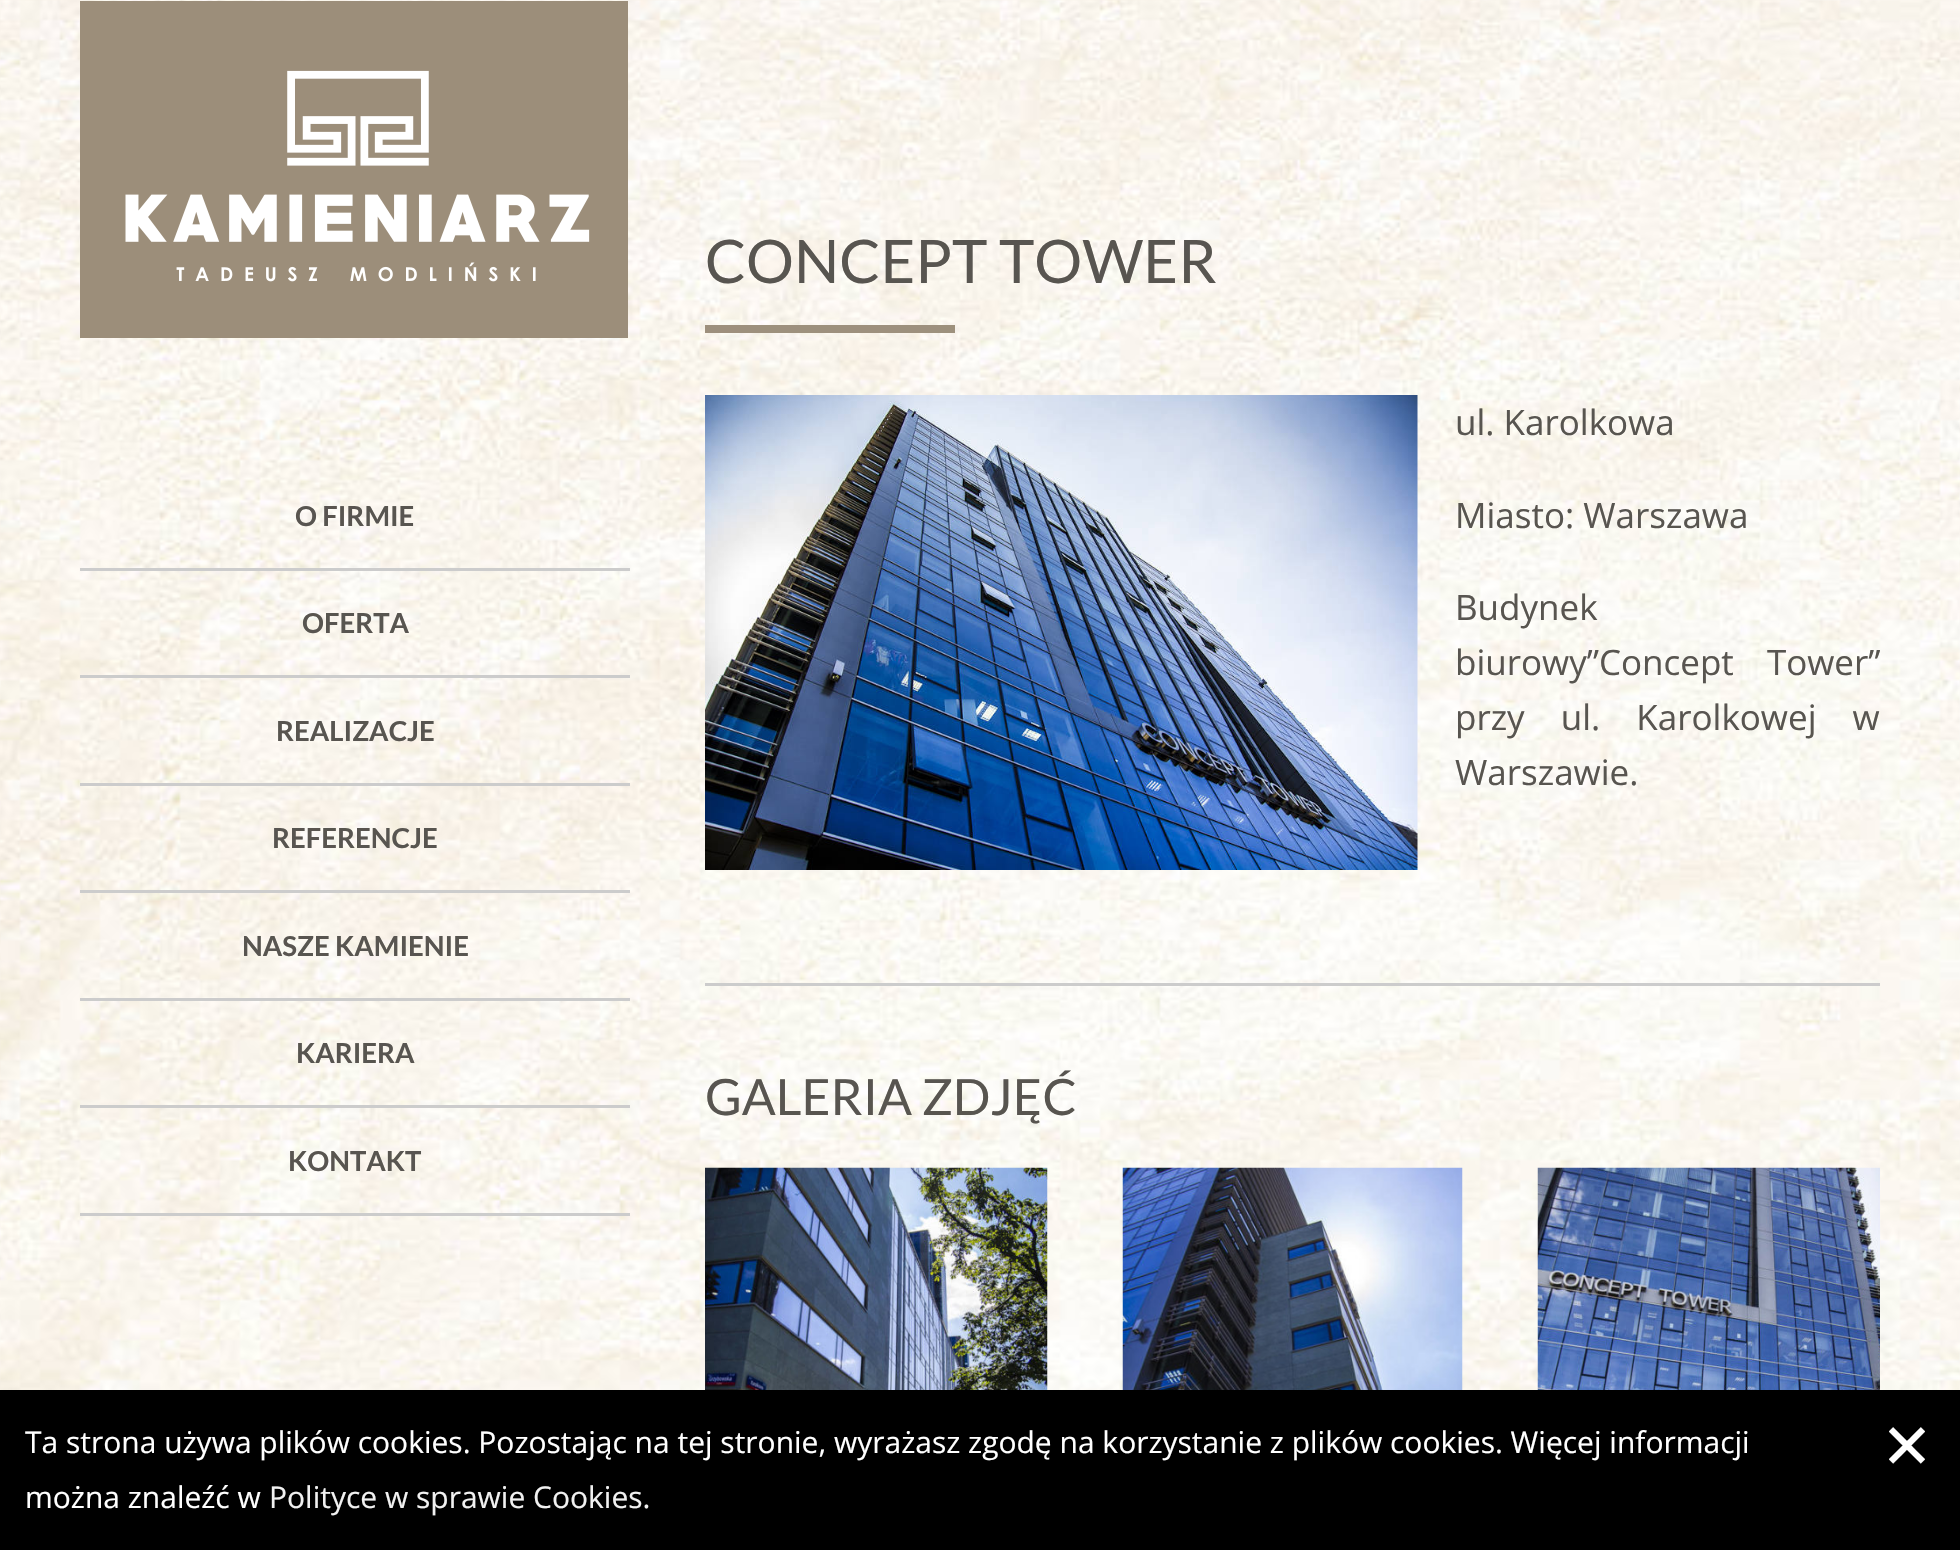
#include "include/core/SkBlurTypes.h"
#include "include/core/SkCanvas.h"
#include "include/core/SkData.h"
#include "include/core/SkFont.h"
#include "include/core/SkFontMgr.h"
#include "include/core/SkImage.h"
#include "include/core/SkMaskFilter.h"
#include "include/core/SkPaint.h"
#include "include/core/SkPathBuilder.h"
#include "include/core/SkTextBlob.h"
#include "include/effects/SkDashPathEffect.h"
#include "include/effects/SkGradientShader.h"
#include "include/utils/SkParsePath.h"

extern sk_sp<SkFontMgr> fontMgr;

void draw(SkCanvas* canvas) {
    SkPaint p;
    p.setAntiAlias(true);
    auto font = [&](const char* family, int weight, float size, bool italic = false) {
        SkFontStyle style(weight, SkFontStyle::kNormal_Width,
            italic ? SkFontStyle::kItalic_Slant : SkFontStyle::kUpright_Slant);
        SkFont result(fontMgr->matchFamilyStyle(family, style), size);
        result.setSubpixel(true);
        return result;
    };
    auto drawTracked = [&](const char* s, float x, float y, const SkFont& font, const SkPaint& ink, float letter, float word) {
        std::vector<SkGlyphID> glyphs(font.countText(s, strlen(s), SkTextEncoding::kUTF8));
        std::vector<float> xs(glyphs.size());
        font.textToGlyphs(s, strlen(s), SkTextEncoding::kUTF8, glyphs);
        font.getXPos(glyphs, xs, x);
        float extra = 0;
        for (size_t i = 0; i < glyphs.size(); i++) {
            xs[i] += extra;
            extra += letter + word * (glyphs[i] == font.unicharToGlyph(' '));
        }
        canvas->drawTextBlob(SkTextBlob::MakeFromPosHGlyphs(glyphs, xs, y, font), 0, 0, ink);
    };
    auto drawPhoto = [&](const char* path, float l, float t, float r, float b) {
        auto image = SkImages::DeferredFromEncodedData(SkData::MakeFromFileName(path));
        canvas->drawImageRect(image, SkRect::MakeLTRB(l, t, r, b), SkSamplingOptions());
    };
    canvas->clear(0xFFFFFFFF);
    drawPhoto("media/1.png", 0, 0, 1960, 1390);
    drawPhoto("media/2.png", 80, 1, 628, 338);
    p.setColor(0xFFCCCCCC);
    canvas->drawRect(SkRect::MakeLTRB(80, 568, 630, 571), p);
    auto font1 = font("Lato", 700, 27.5f);
    p.setColor(0xFF585550);
    canvas->drawString("O FIRMIE", 295, 526, font1, p);
    p.setColor(0xFFCCCCCC);
    canvas->drawRect(SkRect::MakeLTRB(80, 675, 630, 678), p);
    p.setColor(0xFF585550);
    canvas->drawString("OFERTA", 302, 633, font1, p);
    p.setColor(0xFFCCCCCC);
    canvas->drawRect(SkRect::MakeLTRB(80, 783, 630, 786), p);
    p.setColor(0xFF585550);
    canvas->drawString("REALIZACJE", 276, 741, font1, p);
    p.setColor(0xFFCCCCCC);
    canvas->drawRect(SkRect::MakeLTRB(80, 890, 630, 893), p);
    p.setColor(0xFF585550);
    canvas->drawString("REFERENCJE", 272, 848, font1, p);
    p.setColor(0xFFCCCCCC);
    canvas->drawRect(SkRect::MakeLTRB(80, 998, 630, 1001), p);
    p.setColor(0xFF585550);
    canvas->drawString("NASZE KAMIENIE", 242, 956, font1, p);
    p.setColor(0xFFCCCCCC);
    canvas->drawRect(SkRect::MakeLTRB(80, 1105, 630, 1108), p);
    p.setColor(0xFF585550);
    canvas->drawString("KARIERA", 296, 1063, font1, p);
    p.setColor(0xFFCCCCCC);
    canvas->drawRect(SkRect::MakeLTRB(80, 1213, 630, 1216), p);
    p.setColor(0xFF585550);
    canvas->drawString("KONTAKT", 288, 1171, font1, p);
    p.setColor(0xFF9D907D);
    canvas->drawRect(SkRect::MakeLTRB(705, 325, 955, 333), p);
    auto font2 = font("Lato", 400, 60);
    p.setColor(0xFF585550);
    canvas->drawString("CONCEPT TOWER", 705, 283, font2, p);
    drawPhoto("media/3.png", 705, 395, 1418, 870);
    auto font3 = font("Open Sans", 400, 35);
    {
        const struct { const char* s; float x, y; } items[] = {
            {"ul. Karolkowa", 1455, 435},
            {"Miasto: Warszawa", 1455, 528},
            {"Budynek", 1455, 620},
        };
        for (auto [s, x, y] : items) {
            canvas->drawString(s, x, y, font3, p);
        }
    }
    drawTracked("biurowy”Concept Tower”", 1455, 675, font3, p, 0, 24);
    drawTracked("przy ul. Karolkowej w", 1455, 730, font3, p, 0, 27);
    canvas->drawString("Warszawie.", 1455, 785, font3, p);
    p.setColor(0xFFCCCCCC);
    canvas->drawRect(SkRect::MakeLTRB(705, 983, 1880, 986), p);
    auto font4 = font("Lato", 400, 50);
    p.setColor(0xFF585550);
    canvas->drawString("GALERIA ZDJĘĆ", 705, 1115, font4, p);
    drawPhoto("media/4.png", 705, 1167, 1048, 1390);
    drawPhoto("media/5.png", 1122, 1167, 1463, 1390);
    drawPhoto("media/6.png", 1537, 1167, 1880, 1390);
    p.setColor(0xFF000000);
    canvas->drawRect(SkRect::MakeLTRB(0, 1390, 1960, 1550), p);
    auto font5 = font("Open Sans", 400, 30);
    p.setColor(0xFFFFFFFF);
    canvas->drawString("Ta strona używa plików cookies. Pozostając na tej stronie, wyrażasz zgodę na korzystanie z plików cookies. Więcej informacji", 25, 1453, font5, p);
    auto font6 = font("DejaVu Sans", 400, 62);
    canvas->drawString("✕", 1881, 1468, font6, p);
    canvas->drawString("można znaleźć w", 25, 1508, font5, p);
    p.setColor(0xFFF1F1F1);
    canvas->drawString("Polityce w sprawie Cookies.", 269, 1508, font5, p);
}
